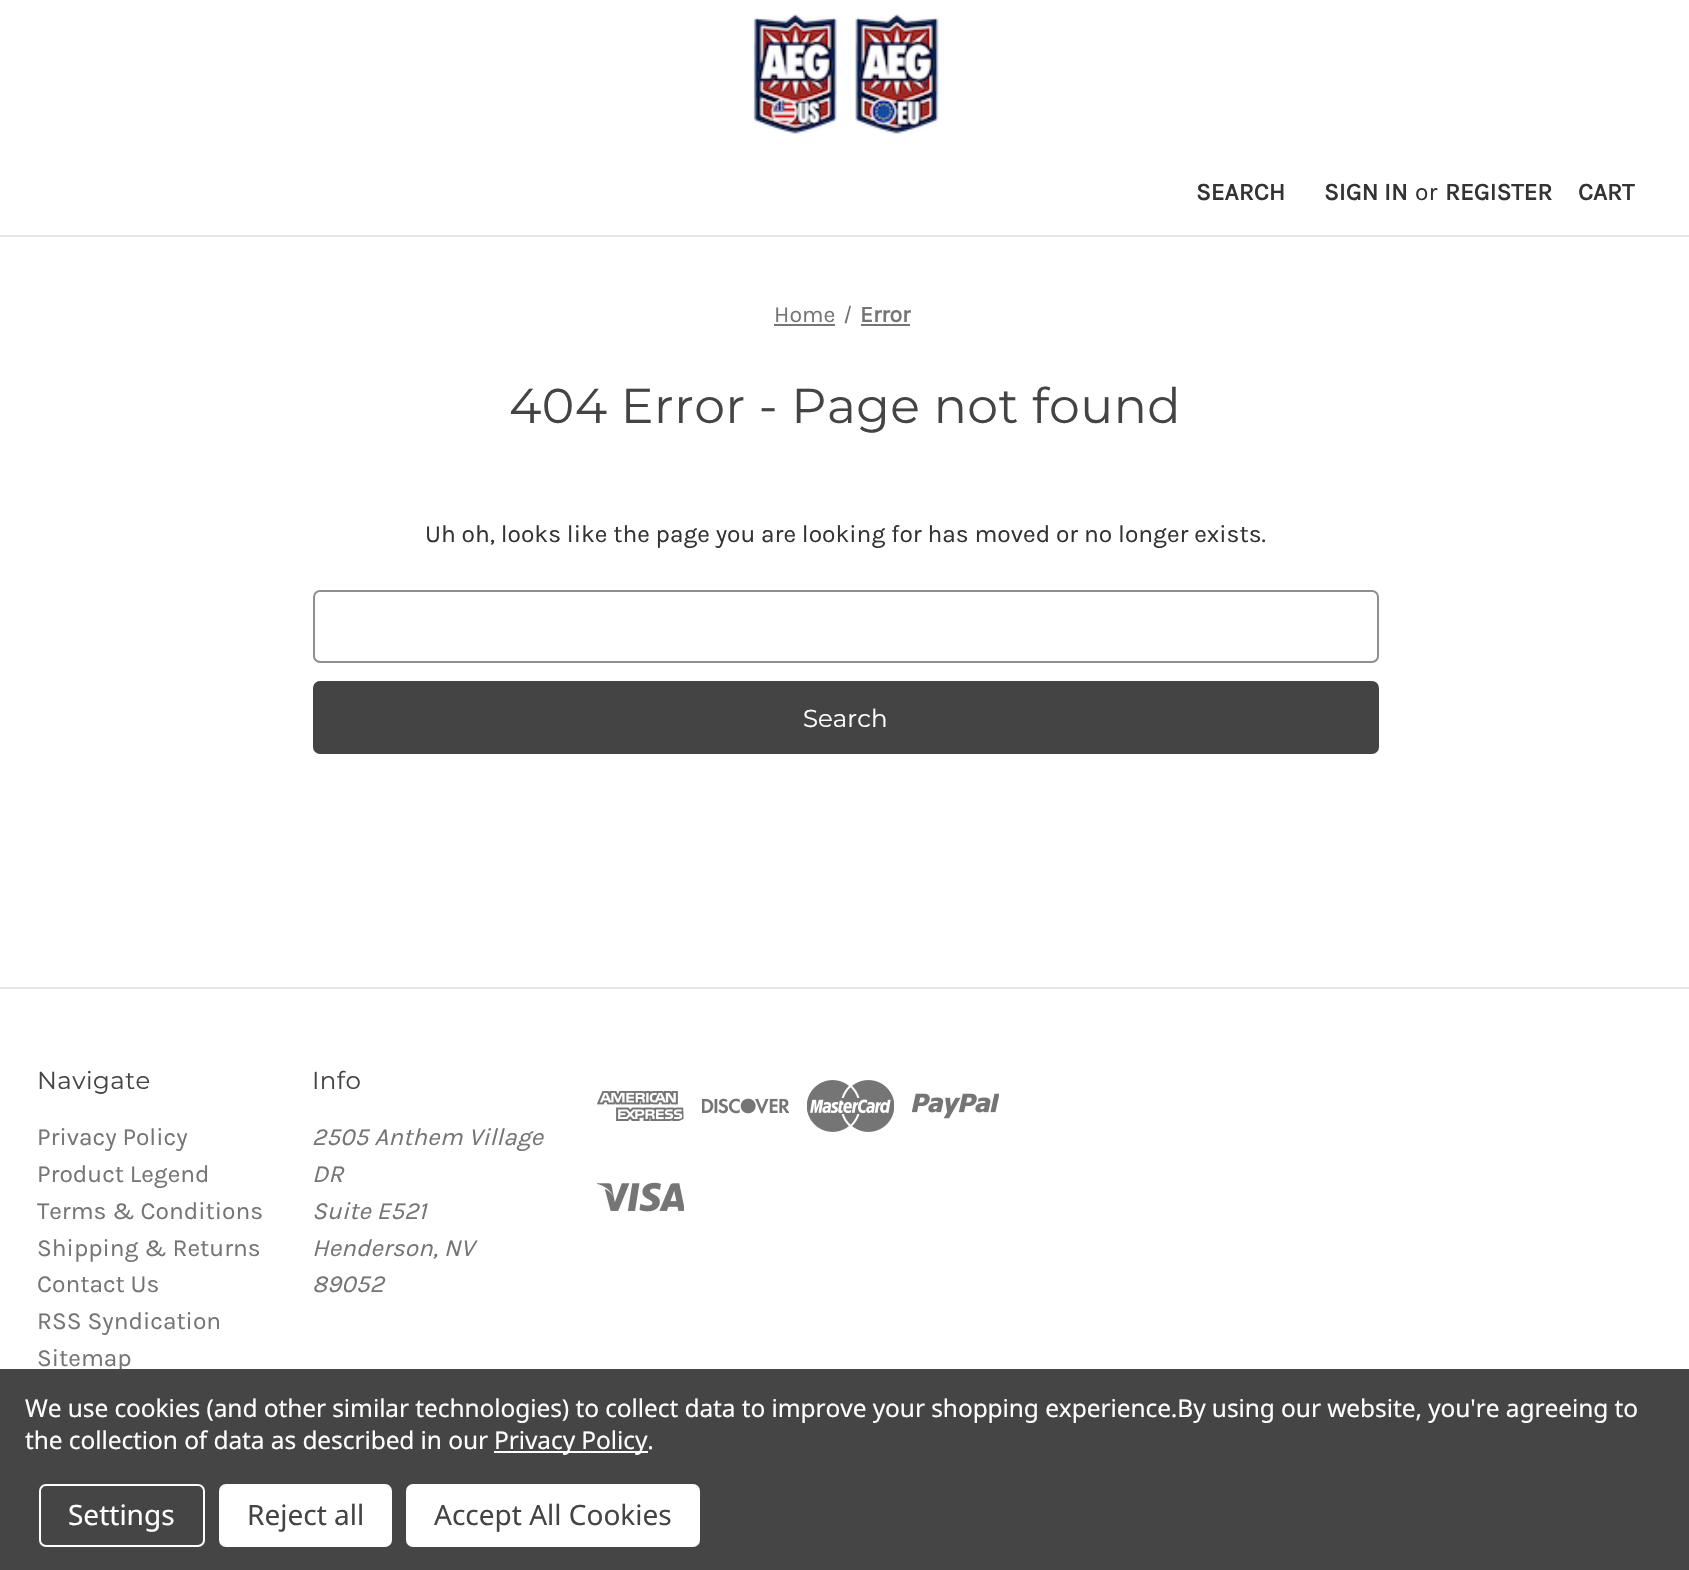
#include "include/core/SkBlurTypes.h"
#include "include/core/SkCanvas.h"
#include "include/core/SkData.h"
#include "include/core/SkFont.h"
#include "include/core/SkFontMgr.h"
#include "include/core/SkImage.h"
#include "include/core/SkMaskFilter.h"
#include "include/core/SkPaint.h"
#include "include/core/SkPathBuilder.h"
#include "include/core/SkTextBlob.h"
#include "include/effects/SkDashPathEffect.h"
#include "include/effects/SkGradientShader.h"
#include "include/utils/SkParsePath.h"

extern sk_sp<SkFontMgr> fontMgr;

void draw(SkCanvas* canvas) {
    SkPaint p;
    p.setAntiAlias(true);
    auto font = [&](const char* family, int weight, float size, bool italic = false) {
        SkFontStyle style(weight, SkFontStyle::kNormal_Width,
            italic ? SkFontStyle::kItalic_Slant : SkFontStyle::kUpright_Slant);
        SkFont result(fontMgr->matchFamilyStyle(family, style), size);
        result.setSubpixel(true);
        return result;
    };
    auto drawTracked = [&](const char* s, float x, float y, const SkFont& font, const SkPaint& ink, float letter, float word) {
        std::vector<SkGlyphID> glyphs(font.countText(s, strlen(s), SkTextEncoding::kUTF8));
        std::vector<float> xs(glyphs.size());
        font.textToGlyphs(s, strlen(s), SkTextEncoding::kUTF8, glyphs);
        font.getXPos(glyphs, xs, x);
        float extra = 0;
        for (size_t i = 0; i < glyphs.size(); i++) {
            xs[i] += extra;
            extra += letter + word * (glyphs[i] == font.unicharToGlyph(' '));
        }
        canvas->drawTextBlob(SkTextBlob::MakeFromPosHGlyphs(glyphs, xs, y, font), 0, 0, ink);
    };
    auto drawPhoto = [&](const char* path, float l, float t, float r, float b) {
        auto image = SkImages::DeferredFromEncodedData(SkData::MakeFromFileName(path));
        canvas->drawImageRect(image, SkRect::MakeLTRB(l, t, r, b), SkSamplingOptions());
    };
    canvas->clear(0xFFFFFFFF);
    p.setColor(0xFFE5E5E5);
    canvas->drawRect(SkRect::MakeLTRB(0, 235, 1689, 237), p);
    drawPhoto("media/1.png", 753, 13, 837, 134);
    drawPhoto("media/2.png", 855, 13, 939, 134);
    auto font1 = font("Karla", 700, 24.5f);
    p.setColor(0xFF333333);
    canvas->drawString("SEARCH", 1196, 200, font1, p);
    canvas->drawString("SIGN IN", 1324, 200, font1, p);
    auto font2 = font("Karla", 400, 24.5f);
    canvas->drawString("or", 1415, 200, font2, p);
    canvas->drawString("REGISTER", 1445, 200, font1, p);
    canvas->drawString("CART", 1578, 200, font1, p);
    auto font3 = font("Karla", 400, 23);
    p.setColor(0xFF757575);
    canvas->drawString("Home", 774, 322, font3, p);
    canvas->drawRect(SkRect::MakeLTRB(774, 324, 835, 326), p);
    canvas->drawPath(SkPathBuilder().moveTo(849.5f, 305.5f).lineTo(851, 306).lineTo(846.5f, 323.5f).lineTo(844.5f, 323).close().detach(), p);
    auto font4 = font("Karla", 700, 23);
    canvas->drawString("Error", 860, 322, font4, p);
    canvas->drawRect(SkRect::MakeLTRB(861, 324, 910, 326), p);
    auto font5 = font("Montserrat", 400, 49);
    p.setColor(0xFF444444);
    drawTracked("404 Error - Page not found", 509, 423, font5, p, 0.45f, 0);
    p.setColor(0xFF333333);
    canvas->drawString("Uh oh, looks like the page you are looking for has moved or no longer exists.", 425, 542, font2, p);
    p.setStyle(SkPaint::kStroke_Style);
    p.setStrokeWidth(2);
    p.setColor(0xFF8F8F8F);
    canvas->drawRoundRect(SkRect::MakeLTRB(314, 591, 1378, 662), 6, 6, p);
    p.setStyle(SkPaint::kFill_Style);
    p.setColor(0xFF444444);
    canvas->drawRoundRect(SkRect::MakeLTRB(314, 682, 1378, 753), 6, 6, p);
    p.setStyle(SkPaint::kStroke_Style);
    canvas->drawRoundRect(SkRect::MakeLTRB(314, 682, 1378, 753), 6, 6, p);
    auto font6 = font("Montserrat", 400, 24.5f);
    p.setStyle(SkPaint::kFill_Style);
    p.setColor(0xFFFFFFFF);
    canvas->drawString("Search", 803, 727, font6, p);
    p.setColor(0xFFE5E5E5);
    canvas->drawRect(SkRect::MakeLTRB(0, 987, 1689, 989), p);
    p.setColor(0xFF444444);
    drawTracked("Navigate", 37, 1089, font6, p, 0.45f, 0);
    p.setColor(0xFF757575);
    {
        const struct { const char* s; float x, y; } items[] = {
            {"Privacy Policy", 37, 1145},
            {"Product Legend", 37, 1182},
            {"Terms & Conditions", 37, 1219},
            {"Shipping & Returns", 37, 1256},
            {"Contact Us", 37, 1292},
            {"RSS Syndication", 37, 1329},
            {"Sitemap", 37, 1366},
        };
        for (auto [s, x, y] : items) {
            canvas->drawString(s, x, y, font2, p);
        }
    }
    p.setColor(0xFF444444);
    drawTracked("Info", 312, 1089, font6, p, 0.45f, 0);
    auto font7 = font("Karla", 400, 24.5f, true);
    p.setColor(0xFF757575);
    {
        const struct { const char* s; float x, y; } items[] = {
            {"2505 Anthem Village", 312, 1145},
            {"DR", 312, 1182},
            {"Suite E521", 312, 1219},
            {"Henderson, NV", 312, 1256},
            {"89052", 312, 1292},
        };
        for (auto [s, x, y] : items) {
            canvas->drawString(s, x, y, font7, p);
        }
    }
    drawPhoto("media/3.png", 597, 1091, 684, 1121);
    drawPhoto("media/4.png", 702, 1098, 789, 1114);
    drawPhoto("media/5.png", 807, 1080, 894, 1132);
    drawPhoto("media/6.png", 912, 1093, 999, 1119);
    drawPhoto("media/7.png", 597, 1182, 684, 1212);
    p.setColor(0xFF454545);
    canvas->drawRect(SkRect::MakeLTRB(0, 1369, 1689, 1570), p);
    auto font8 = font("Noto Sans", 400, 24.5f);
    p.setColor(0xFFFFFFFF);
    drawTracked("We use cookies (and other similar technologies) to collect data to improve your shopping experience.By using our website, you're agreeing to", 25, 1417, font8, p, -0.09f, 0);
    drawTracked("the collection of data as described in our", 25, 1449, font8, p, -0.09f, 0);
    canvas->drawRect(SkRect::MakeLTRB(494, 1451, 648, 1453), p);
    drawTracked("Privacy Policy.", 494, 1449, font8, p, -0.09f, 0);
    p.setStyle(SkPaint::kStroke_Style);
    canvas->drawRoundRect(SkRect::MakeLTRB(40, 1485, 204, 1546), 6, 6, p);
    auto font9 = font("Noto Sans", 400, 28);
    p.setStyle(SkPaint::kFill_Style);
    canvas->drawString("Settings", 68, 1525, font9, p);
    canvas->drawRoundRect(SkRect::MakeLTRB(219, 1484, 392, 1547), 7, 7, p);
    p.setColor(0xFF444444);
    canvas->drawString("Reject all", 247, 1525, font9, p);
    p.setColor(0xFFFFFFFF);
    canvas->drawRoundRect(SkRect::MakeLTRB(406, 1484, 700, 1547), 7, 7, p);
    p.setColor(0xFF444444);
    canvas->drawString("Accept All Cookies", 434, 1525, font9, p);
}
